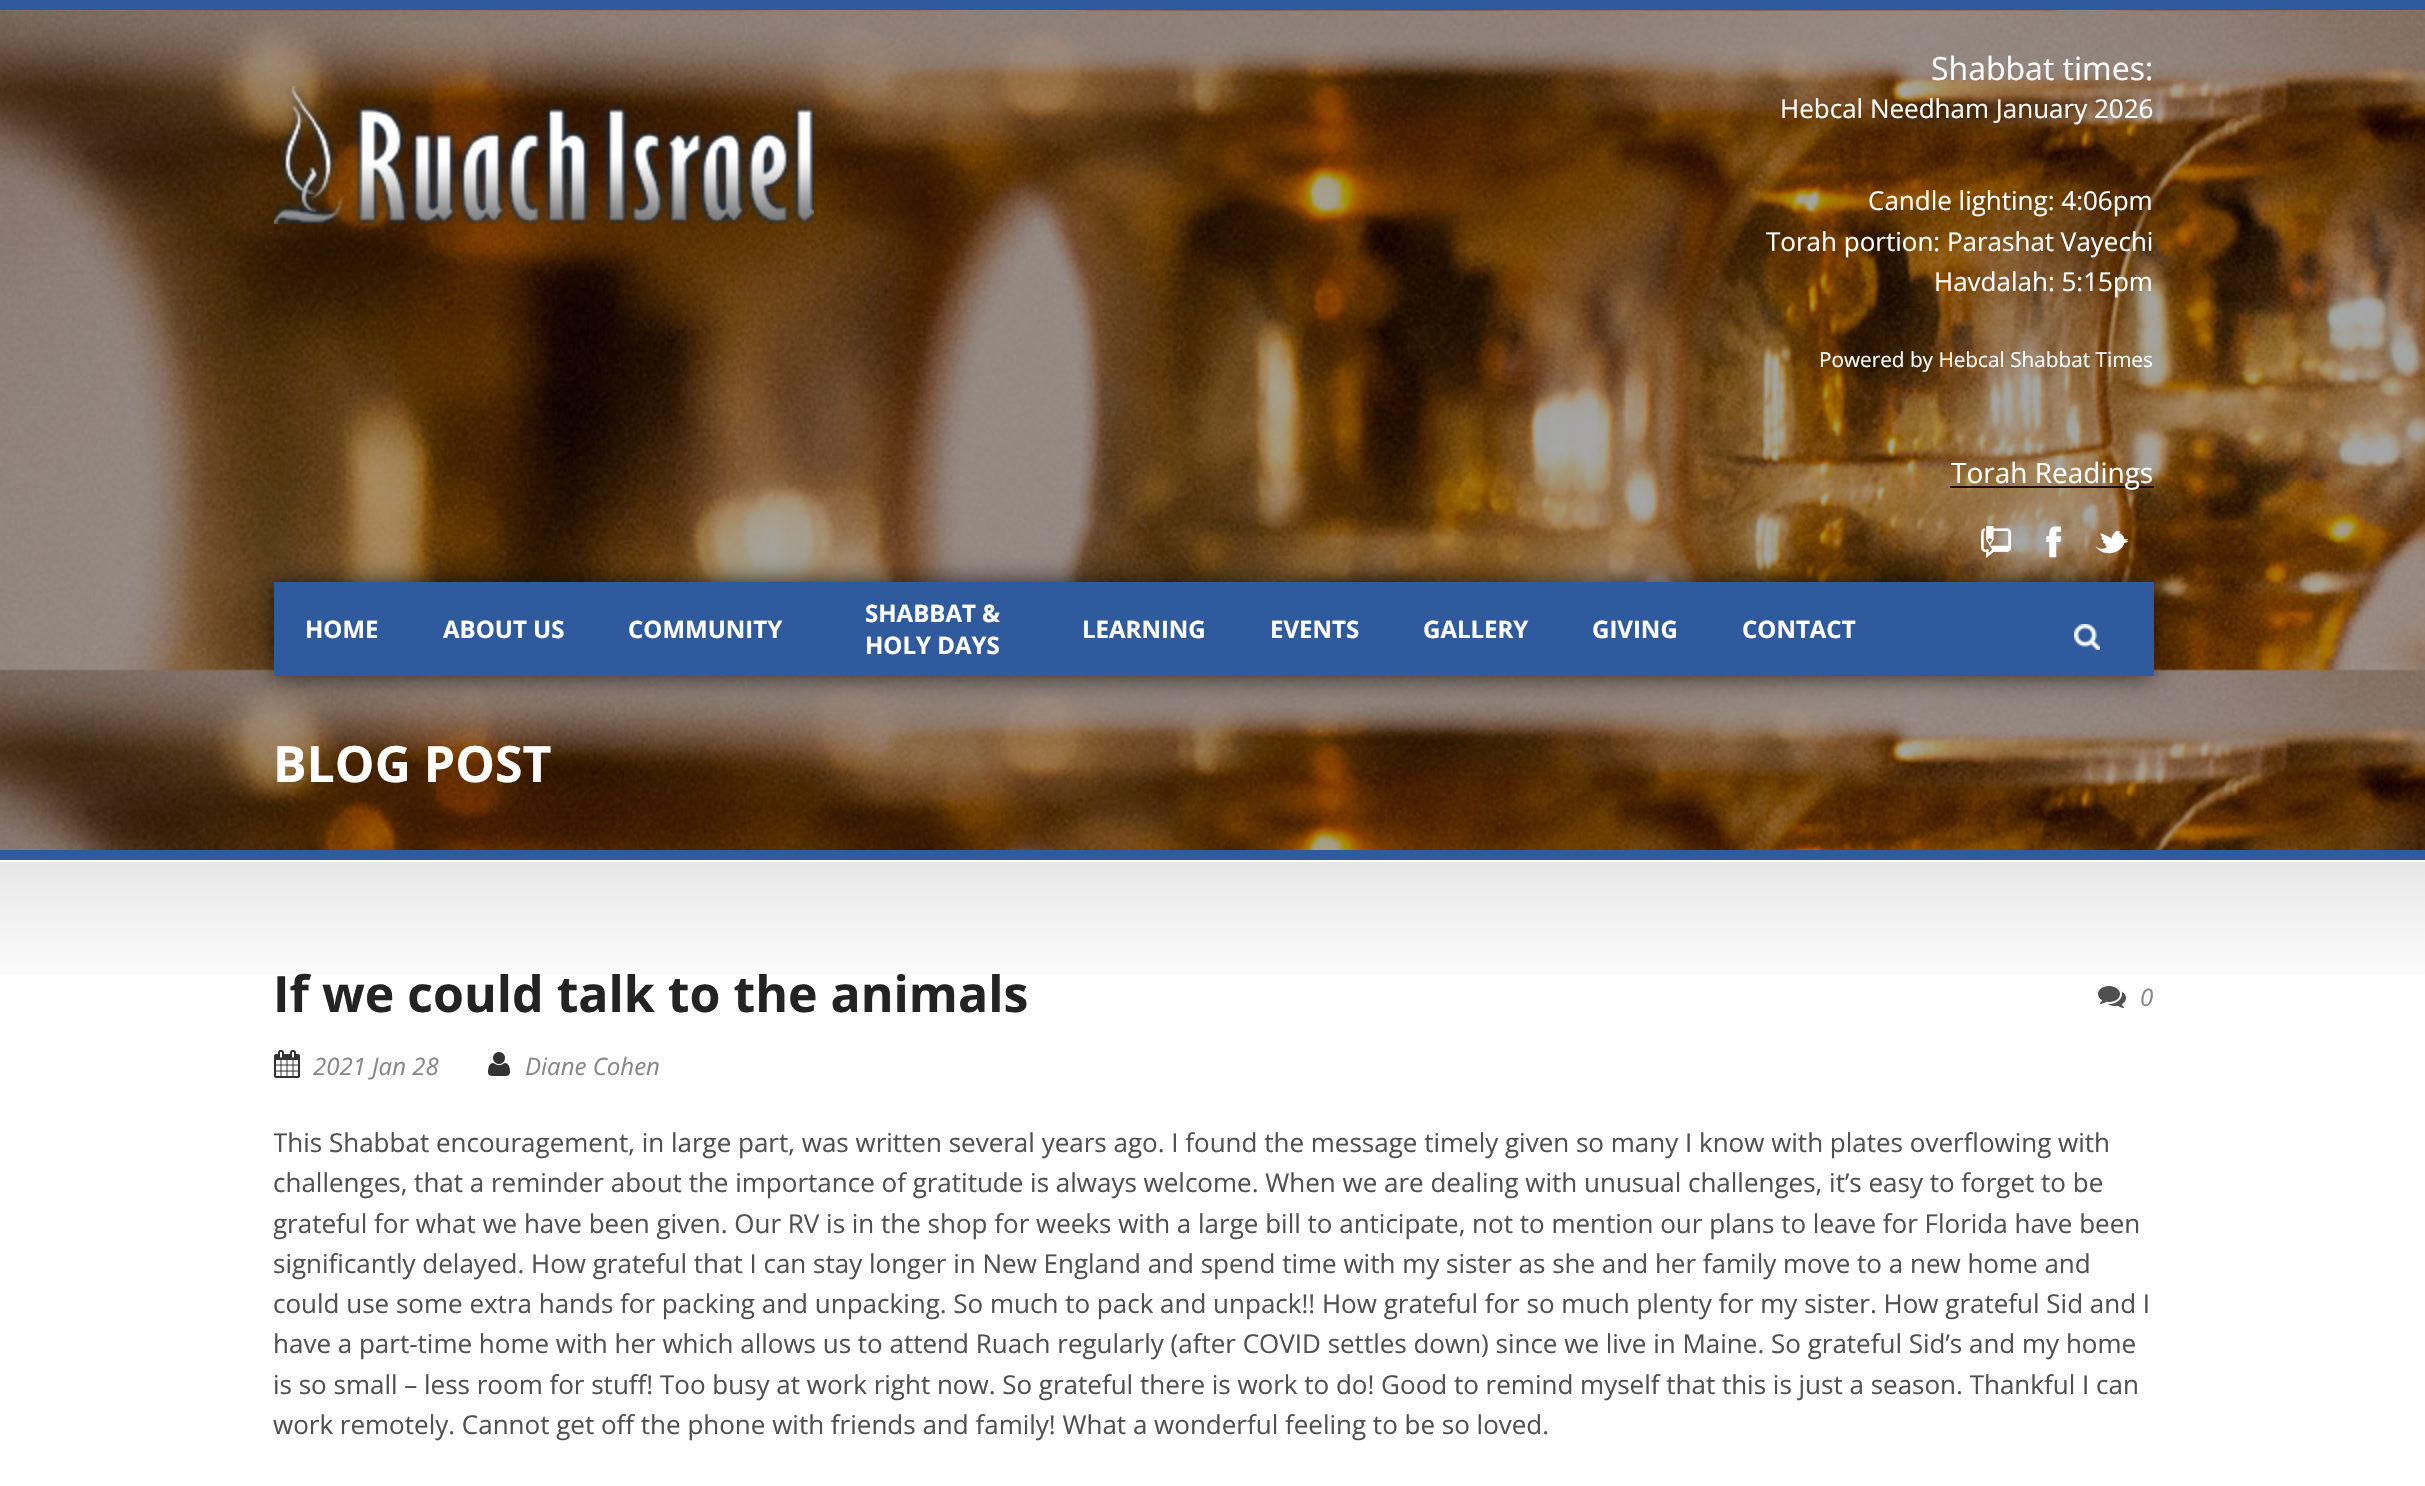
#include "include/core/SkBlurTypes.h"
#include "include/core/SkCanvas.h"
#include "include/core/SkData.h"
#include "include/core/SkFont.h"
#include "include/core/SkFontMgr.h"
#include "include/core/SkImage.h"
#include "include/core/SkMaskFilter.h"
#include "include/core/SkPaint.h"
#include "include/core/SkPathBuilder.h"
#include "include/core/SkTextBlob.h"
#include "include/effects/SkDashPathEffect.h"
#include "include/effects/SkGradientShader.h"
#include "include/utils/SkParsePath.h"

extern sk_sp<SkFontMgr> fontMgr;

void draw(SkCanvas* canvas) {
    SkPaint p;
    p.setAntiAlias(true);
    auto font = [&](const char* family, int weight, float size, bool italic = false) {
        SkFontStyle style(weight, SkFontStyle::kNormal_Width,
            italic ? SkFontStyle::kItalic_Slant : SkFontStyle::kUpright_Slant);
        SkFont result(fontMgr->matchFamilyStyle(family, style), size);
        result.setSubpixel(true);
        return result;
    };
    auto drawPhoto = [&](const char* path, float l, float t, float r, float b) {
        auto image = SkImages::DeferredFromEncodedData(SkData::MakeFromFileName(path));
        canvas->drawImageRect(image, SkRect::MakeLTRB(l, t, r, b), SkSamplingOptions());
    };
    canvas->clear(0xFFFFFFFF);
    p.setColor(0xFF2F5A9E);
    canvas->drawRect(SkRect::MakeLTRB(0, 0, 2425, 10), p);
    drawPhoto("media/1.png", 0, 10, 2425, 850);
    drawPhoto("media/2.png", 274, 86, 814, 224);
    auto font1 = font("Open Sans", 400, 32);
    p.setColor(0xFFFFFFFF);
    canvas->drawString("Shabbat times:", 1931, 80, font1, p);
    auto font2 = font("Open Sans", 400, 26);
    {
        const struct { const char* s; float x, y; } items[] = {
            {"Hebcal Needham January 2026", 1780, 118},
            {"Candle lighting: 4:06pm", 1868, 210},
            {"Torah portion: Parashat Vayechi", 1766, 251},
            {"Havdalah: 5:15pm", 1934, 291},
        };
        for (auto [s, x, y] : items) {
            canvas->drawString(s, x, y, font2, p);
        }
    }
    auto font3 = font("Open Sans", 400, 20.75f);
    canvas->drawString("Powered by Hebcal Shabbat Times", 1819, 367, font3, p);
    p.setColor(0xFF111111);
    canvas->drawRect(SkRect::MakeLTRB(1950, 486, 2154, 488), p);
    auto font4 = font("Open Sans", 400, 28);
    p.setColor(0xFFFFFFFF);
    canvas->drawString("Torah Readings", 1951, 483, font4, p);
    drawPhoto("media/3.png", 1981, 526, 2011, 558);
    drawPhoto("media/4.png", 2046, 526, 2061, 558);
    drawPhoto("media/5.png", 2096, 531, 2128, 554);
    p.setColor(0xB3000000);
    p.setMaskFilter(SkMaskFilter::MakeBlur(kNormal_SkBlurStyle, 12));
    canvas->drawRect(SkRect::MakeLTRB(274, 582, 2154, 676), p);
    p.setMaskFilter(nullptr);
    p.setColor(0xFF2F5A9E);
    canvas->drawRect(SkRect::MakeLTRB(274, 582, 2154, 676), p);
    auto font5 = font("Open Sans", 700, 24);
    p.setColor(0xFFFFFFFF);
    {
        const struct { const char* s; float x, y; } items[] = {
            {"HOME", 305, 638},
            {"ABOUT US", 443, 638},
            {"COMMUNITY", 628, 638},
            {"SHABBAT &", 865, 622},
            {"HOLY DAYS", 865, 654},
            {"LEARNING", 1082, 638},
            {"EVENTS", 1270, 638},
            {"GALLERY", 1423, 638},
            {"GIVING", 1592, 638},
            {"CONTACT", 1742, 638},
        };
        for (auto [s, x, y] : items) {
            canvas->drawString(s, x, y, font5, p);
        }
    }
    drawPhoto("media/6.png", 2074, 624, 2100, 650);
    auto font6 = font("Open Sans", 700, 50);
    canvas->drawString("BLOG POST", 273, 782, font6, p);
    p.setColor(0xFF2F5A9E);
    canvas->drawRect(SkRect::MakeLTRB(0, 850, 2425, 860), p);
    drawPhoto("media/7.png", 0, 862, 2425, 974);
    p.setColor(0xFF232323);
    canvas->drawString("If we could talk to the animals", 273, 1012, font6, p);
    drawPhoto("media/8.png", 2098, 986, 2126, 1008);
    auto font7 = font("Open Sans", 400, 24, true);
    p.setColor(0xFF878787);
    canvas->drawString("0", 2140, 1006, font7, p);
    drawPhoto("media/9.png", 274, 1050, 300, 1078);
    canvas->drawString("2021 Jan 28", 313, 1075, font7, p);
    drawPhoto("media/10.png", 488, 1052, 510, 1076);
    canvas->drawString("Diane Cohen", 525, 1075, font7, p);
    canvas->save();
    canvas->clipRect(SkRect::MakeLTRB(274, 960, 2154, 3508));
    p.setColor(0xFF505050);
    canvas->drawString("This Shabbat encouragement, in large part, was written several years ago. I found the message timely given so many I know with plates overflowing with", 273, 1152, font2, p);
    canvas->restore();
    canvas->drawString("challenges, that a reminder about the importance of gratitude is always welcome. When we are dealing with unusual challenges, it’s easy to forget to be", 273, 1192, font2, p);
    canvas->save();
    canvas->clipRect(SkRect::MakeLTRB(274, 960, 2154, 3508));
    canvas->drawString("grateful for what we have been given. Our RV is in the shop for weeks with a large bill to anticipate, not to mention our plans to leave for Florida have been", 273, 1233, font2, p);
    canvas->restore();
    {
        const struct { const char* s; float x, y; } items[] = {
            {"significantly delayed. How grateful that I can stay longer in New England and spend time with my sister as she and her family move to a new home and", 273, 1273},
            {"could use some extra hands for packing and unpacking. So much to pack and unpack!! How grateful for so much plenty for my sister. How grateful Sid and I", 273, 1313},
            {"have a part-time home with her which allows us to attend Ruach regularly (after COVID settles down) since we live in Maine. So grateful Sid’s and my home", 273, 1353},
            {"is so small – less room for stuff! Too busy at work right now. So grateful there is work to do! Good to remind myself that this is just a season. Thankful I can", 273, 1394},
            {"work remotely. Cannot get off the phone with friends and family! What a wonderful feeling to be so loved.", 273, 1434},
        };
        for (auto [s, x, y] : items) {
            canvas->drawString(s, x, y, font2, p);
        }
    }
}
